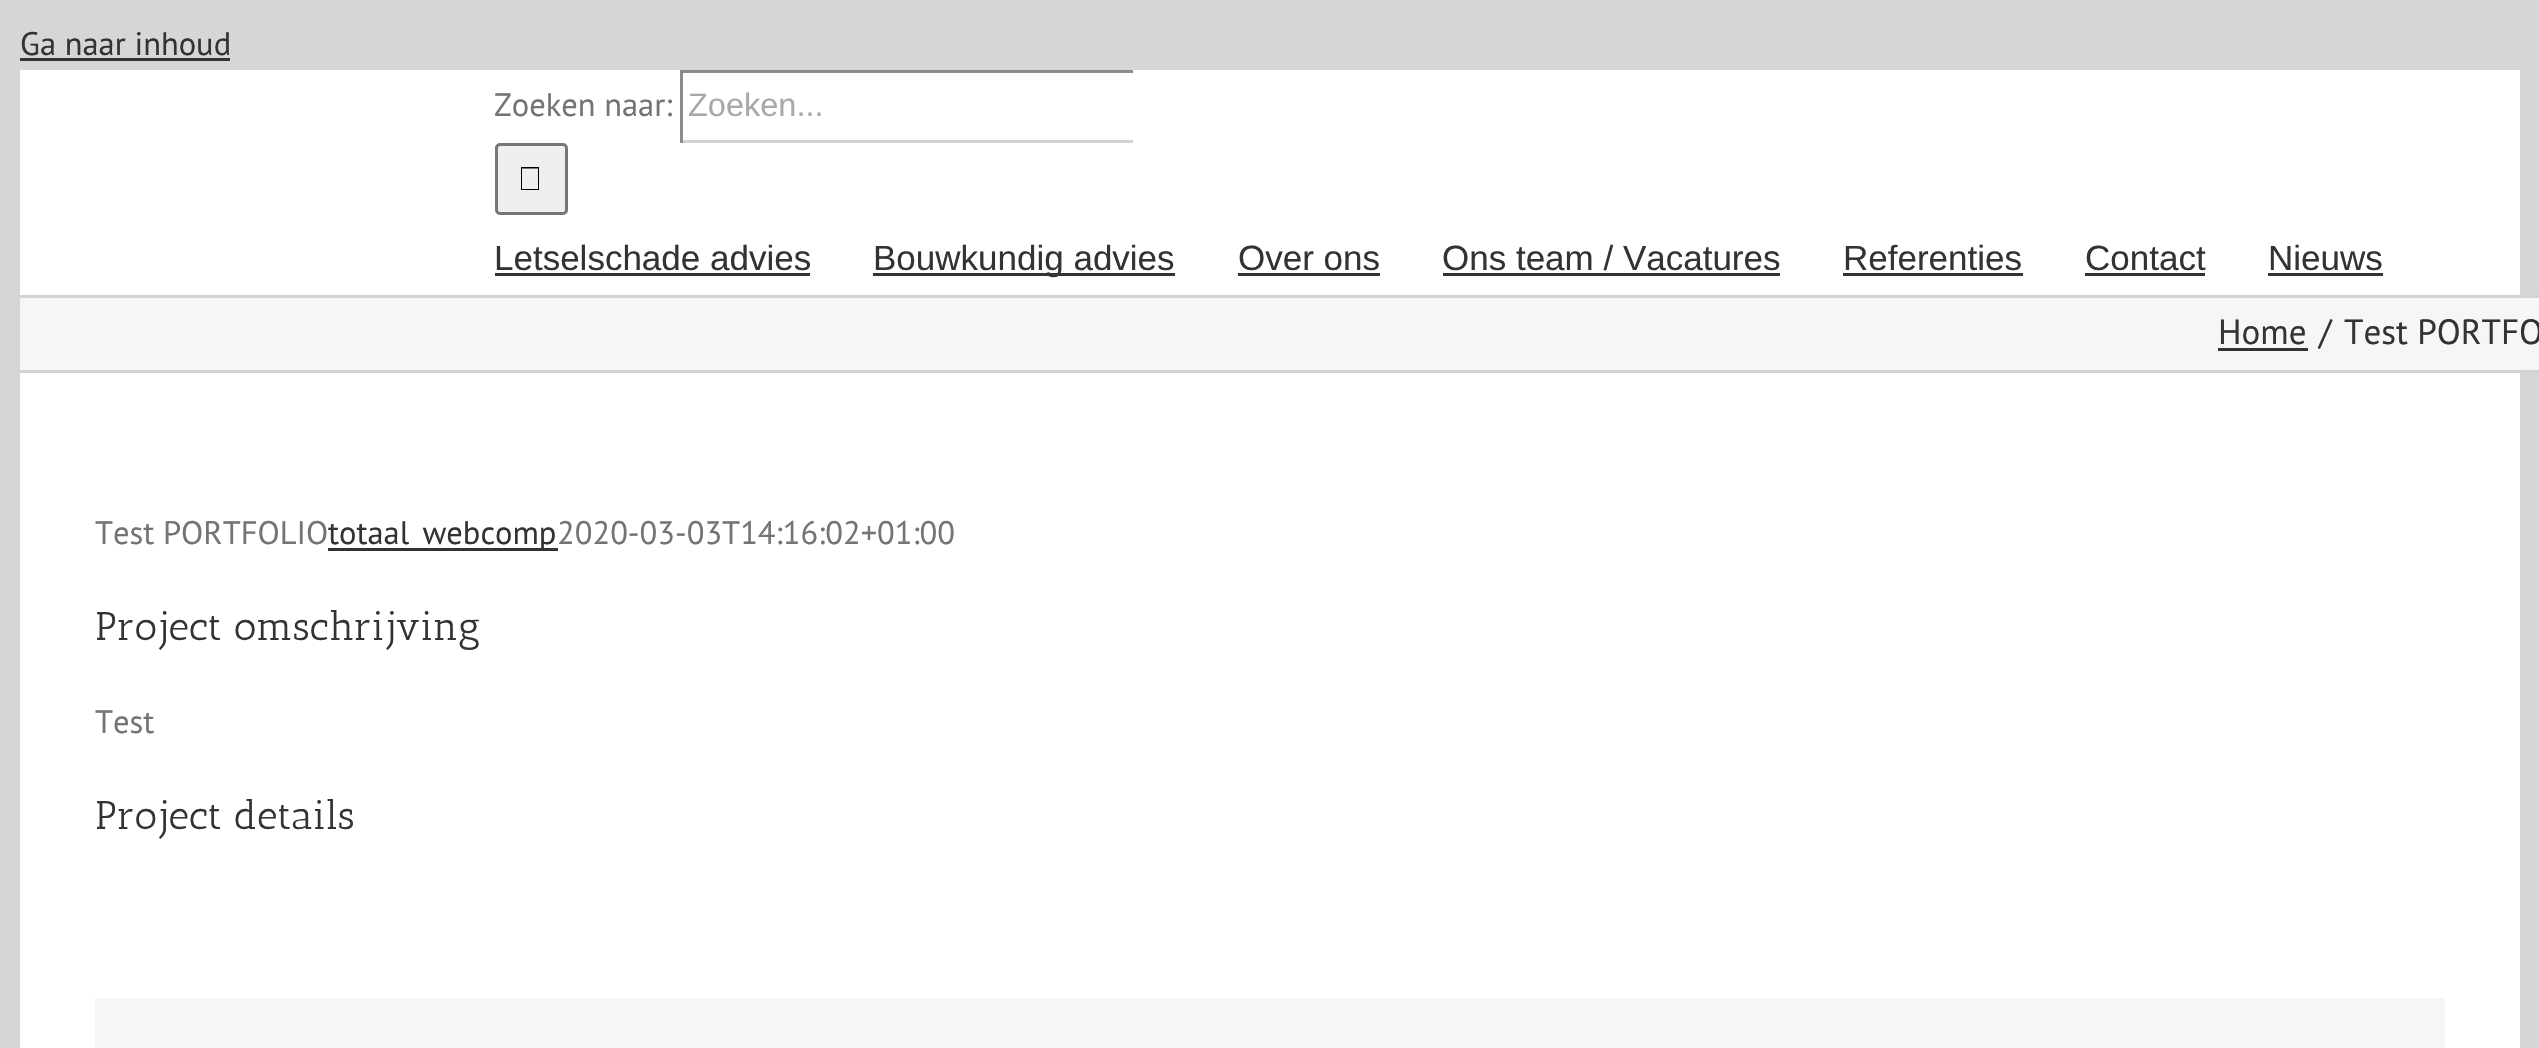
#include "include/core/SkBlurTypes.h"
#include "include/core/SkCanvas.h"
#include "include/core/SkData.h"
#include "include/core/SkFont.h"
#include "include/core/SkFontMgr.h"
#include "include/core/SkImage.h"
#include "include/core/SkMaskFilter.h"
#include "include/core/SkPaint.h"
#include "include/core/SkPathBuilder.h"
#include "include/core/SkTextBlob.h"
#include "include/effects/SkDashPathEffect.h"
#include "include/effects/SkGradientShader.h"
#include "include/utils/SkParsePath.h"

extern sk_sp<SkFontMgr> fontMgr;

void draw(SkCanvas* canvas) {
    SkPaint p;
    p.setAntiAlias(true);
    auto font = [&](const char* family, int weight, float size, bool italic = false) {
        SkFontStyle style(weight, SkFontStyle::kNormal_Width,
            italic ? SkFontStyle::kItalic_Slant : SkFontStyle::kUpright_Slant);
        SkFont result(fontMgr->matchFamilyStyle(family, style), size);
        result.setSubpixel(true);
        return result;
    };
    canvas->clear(0xFFD7D6D6);
    auto font1 = font("PT Sans", 400, 32.5f);
    p.setColor(0xFF333333);
    canvas->drawString("Ga naar inhoud", 20, 55, font1, p);
    canvas->drawRect(SkRect::MakeLTRB(20, 58, 230, 61), p);
    p.setColor(0xFFFFFFFF);
    canvas->drawRect(SkRect::MakeLTRB(20, 70, 2520, 1048), p);
    p.setColor(0xFF747474);
    canvas->drawString("Zoeken naar:", 494, 116, font1, p);
    {
        const struct { float l, t, r, b; SkColor color; } items[] = {
            {680, 70, 1133, 73, 0xFF8C8C8C},
            {680, 140, 1133, 143, 0xFFD2D2D2},
            {680, 70, 683, 143, 0xFF8C8C8C},
        };
        for (auto [l, t, r, b, color] : items) {
            p.setColor(color);
            canvas->drawRect(SkRect::MakeLTRB(l, t, r, b), p);
        }
    }
    auto font2 = font("Liberation Sans", 400, 32.5f);
    p.setColor(0xFFAAA9A9);
    canvas->drawString("Zoeken...", 688, 116, font2, p);
    p.setColor(0xFFEFEFEF);
    canvas->drawRoundRect(SkRect::MakeLTRB(496.5f, 144.5f, 566.5f, 213.5f), 3.5f, 3.5f, p);
    p.setStyle(SkPaint::kStroke_Style);
    p.setStrokeWidth(3);
    p.setColor(0xFF767676);
    canvas->drawRoundRect(SkRect::MakeLTRB(496.5f, 144.5f, 566.5f, 213.5f), 3.5f, 3.5f, p);
    p.setStyle(SkPaint::kFill_Style);
    p.setColor(0xFF000000);
    canvas->drawPath(SkPathBuilder().moveTo(521, 167).lineTo(539, 167).lineTo(539, 190).lineTo(521, 190).close().moveTo(522, 168.5f).lineTo(522, 189).lineTo(538, 189).lineTo(538, 168.5f).close().detach(), p);
    auto font3 = font("Liberation Sans", 400, 35);
    p.setColor(0xFF333333);
    canvas->drawString("Letselschade advies", 494, 270, font3, p);
    canvas->drawRect(SkRect::MakeLTRB(495, 273, 810, 276), p);
    canvas->drawRect(SkRect::MakeLTRB(873, 273, 1175, 276), p);
    canvas->drawString("Bouwkundig advies", 873, 270, font3, p);
    canvas->drawString("Over ons", 1238, 270, font3, p);
    canvas->drawRect(SkRect::MakeLTRB(1238, 273, 1380, 276), p);
    canvas->drawString("Ons team / Vacatures", 1442, 270, font3, p);
    canvas->drawRect(SkRect::MakeLTRB(1443, 273, 1780, 276), p);
    canvas->drawString("Referenties", 1843, 270, font3, p);
    canvas->drawRect(SkRect::MakeLTRB(1843, 273, 2023, 276), p);
    canvas->drawString("Contact", 2085, 270, font3, p);
    canvas->drawRect(SkRect::MakeLTRB(2085, 273, 2205, 276), p);
    canvas->drawString("Nieuws", 2268, 270, font3, p);
    {
        const struct { float l, t, r, b; SkColor color; } items[] = {
            {2268, 273, 2383, 276, 0xFF333333},
            {20, 298, 2539, 370, 0xFFF6F6F6},
            {20, 295, 2539, 298, 0xFFD2D3D4},
            {20, 370, 2539, 373, 0xFFD2D3D4},
        };
        for (auto [l, t, r, b, color] : items) {
            p.setColor(color);
            canvas->drawRect(SkRect::MakeLTRB(l, t, r, b), p);
        }
    }
    auto font4 = font("PT Sans", 400, 35);
    p.setColor(0xFF333333);
    canvas->drawString("Home", 2218, 344, font4, p);
    canvas->drawRect(SkRect::MakeLTRB(2218, 348, 2308, 351), p);
    canvas->drawString("/", 2319, 344, font4, p);
    canvas->drawString("Test PORTFO", 2344, 344, font4, p);
    p.setColor(0xFF747474);
    canvas->drawString("Test PORTFOLIO", 95, 544, font1, p);
    p.setColor(0xFF333333);
    canvas->drawRect(SkRect::MakeLTRB(328, 548, 558, 551), p);
    canvas->drawString("totaal_webcomp", 328, 544, font1, p);
    p.setColor(0xFF747474);
    canvas->drawString("2020-03-03T14:16:02+01:00", 557, 544, font1, p);
    auto font5 = font("Antic Slab", 400, 40);
    p.setColor(0xFF333333);
    canvas->drawString("Project omschrijving", 95, 640, font5, p);
    p.setColor(0xFF747474);
    canvas->drawString("Test", 95, 733, font1, p);
    p.setColor(0xFF333333);
    canvas->drawString("Project details", 95, 829, font5, p);
    p.setColor(0xFFF6F6F6);
    canvas->drawRect(SkRect::MakeLTRB(95, 998, 2445, 1048), p);
}
